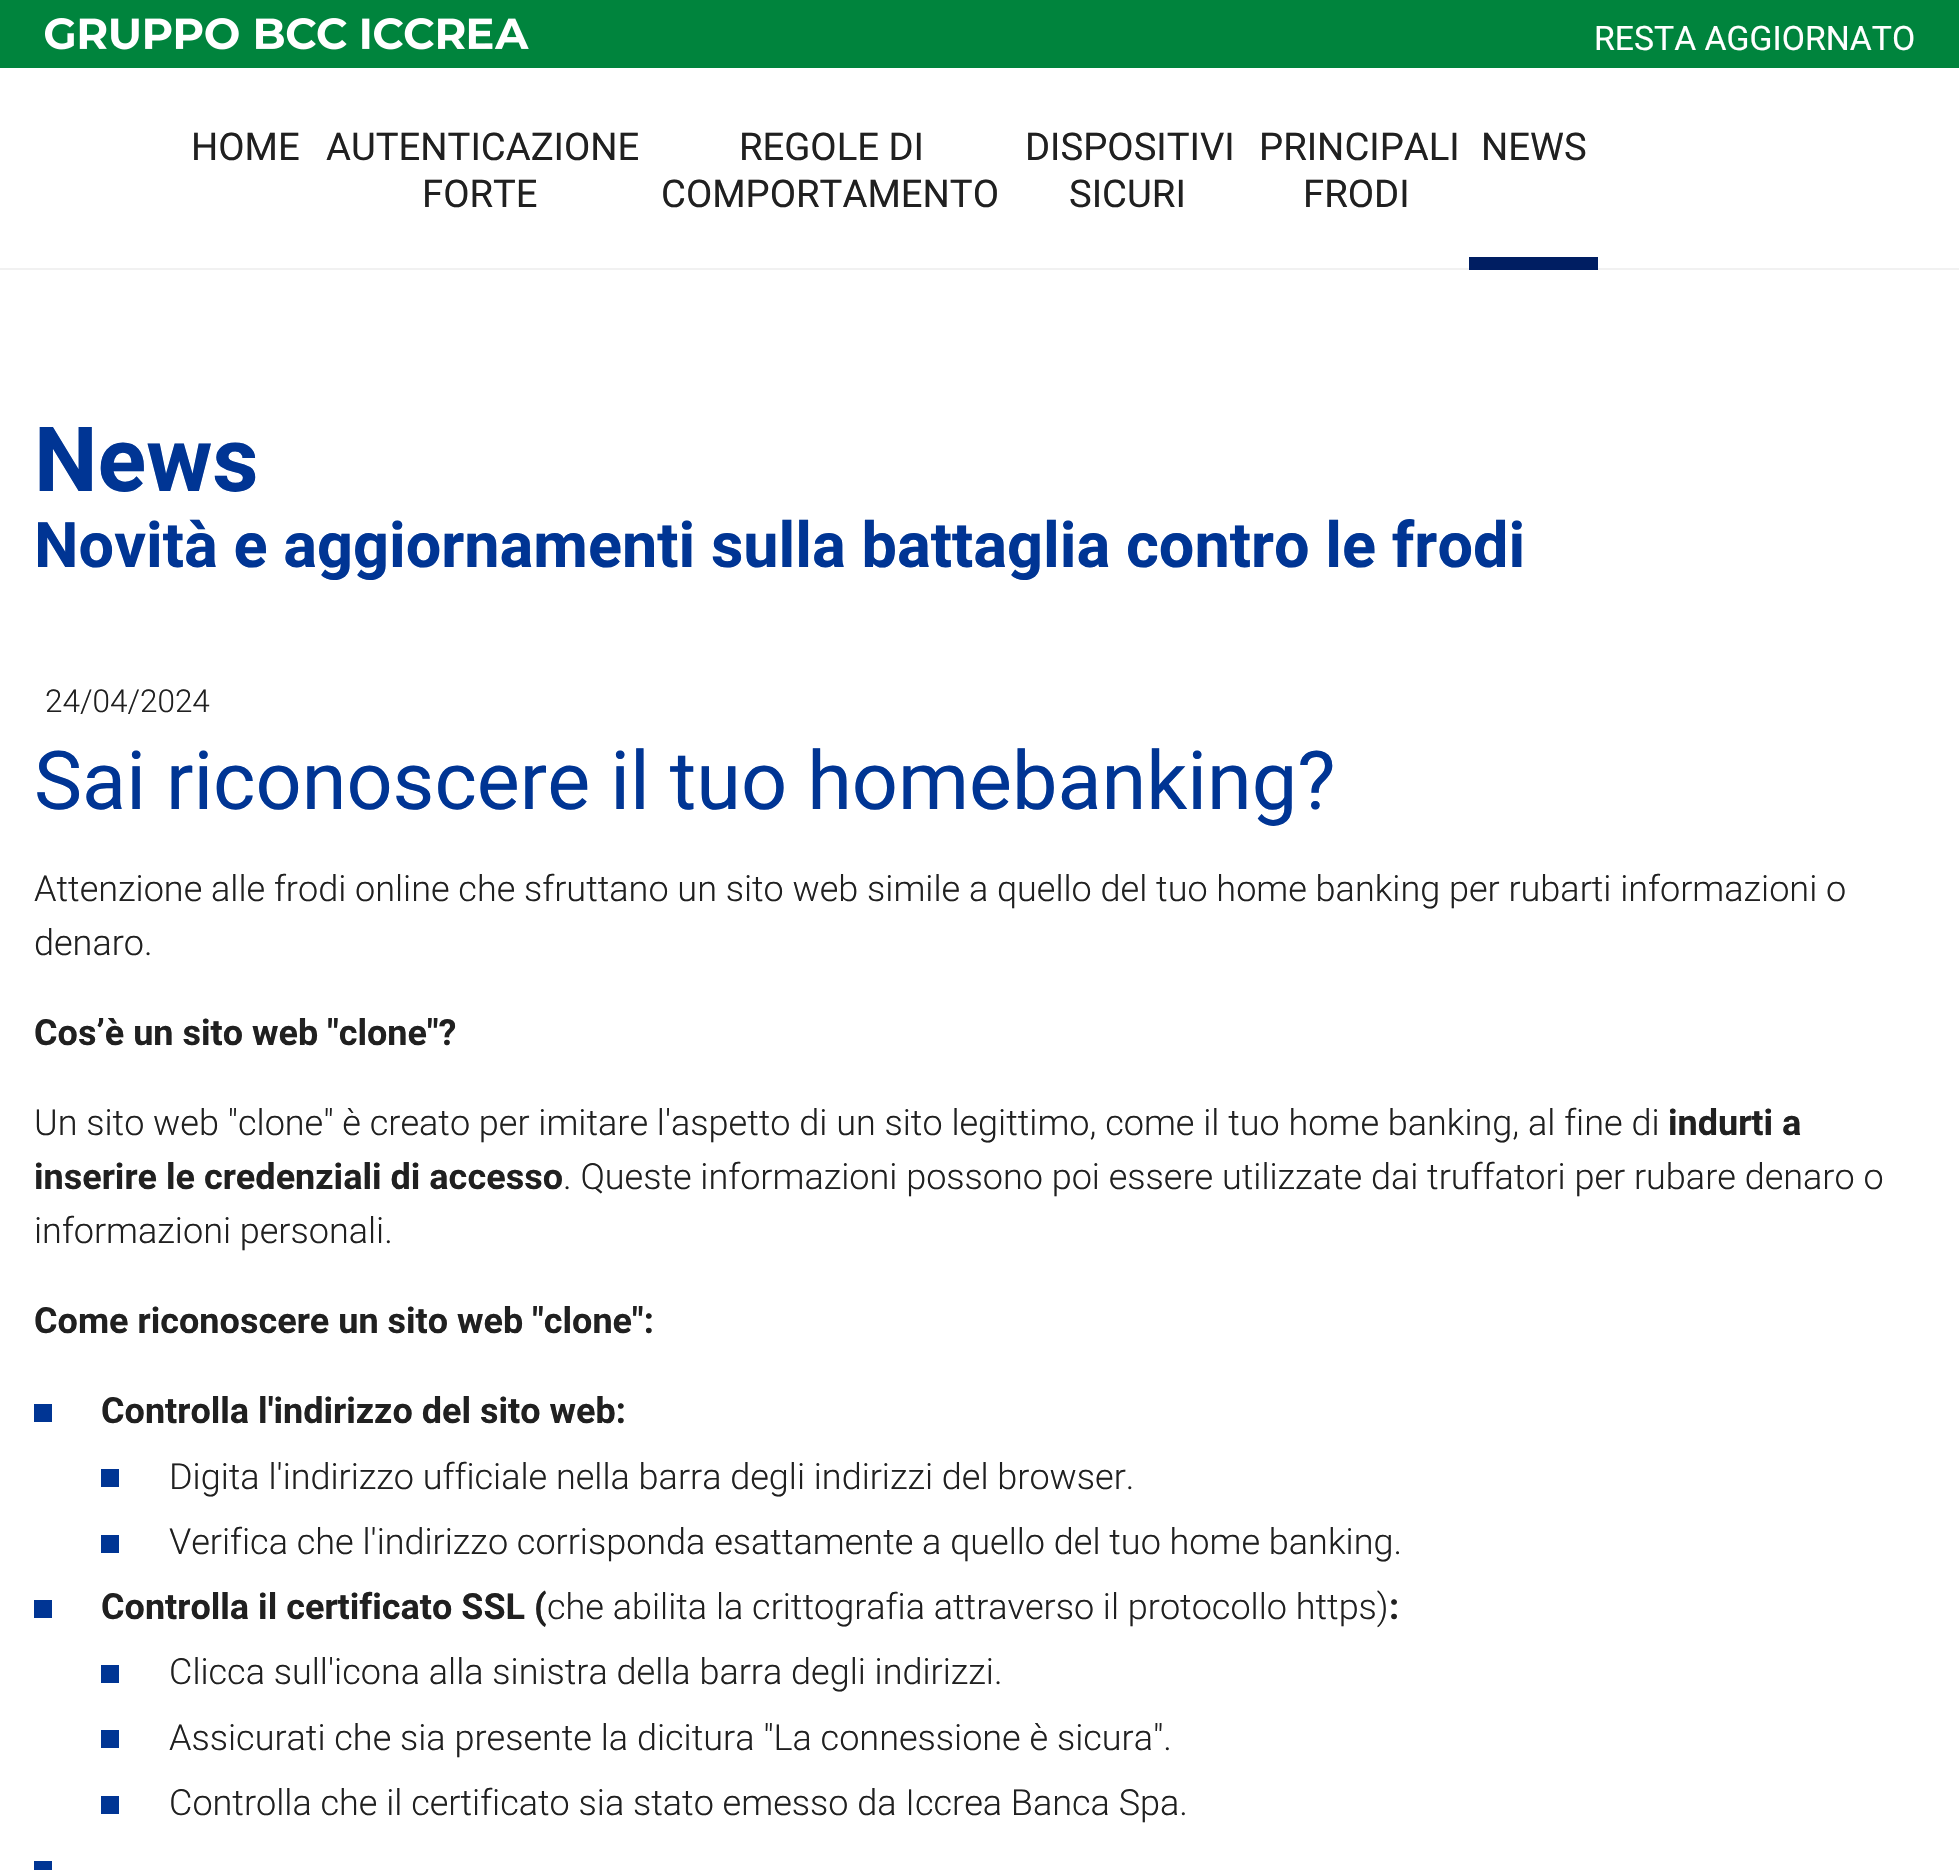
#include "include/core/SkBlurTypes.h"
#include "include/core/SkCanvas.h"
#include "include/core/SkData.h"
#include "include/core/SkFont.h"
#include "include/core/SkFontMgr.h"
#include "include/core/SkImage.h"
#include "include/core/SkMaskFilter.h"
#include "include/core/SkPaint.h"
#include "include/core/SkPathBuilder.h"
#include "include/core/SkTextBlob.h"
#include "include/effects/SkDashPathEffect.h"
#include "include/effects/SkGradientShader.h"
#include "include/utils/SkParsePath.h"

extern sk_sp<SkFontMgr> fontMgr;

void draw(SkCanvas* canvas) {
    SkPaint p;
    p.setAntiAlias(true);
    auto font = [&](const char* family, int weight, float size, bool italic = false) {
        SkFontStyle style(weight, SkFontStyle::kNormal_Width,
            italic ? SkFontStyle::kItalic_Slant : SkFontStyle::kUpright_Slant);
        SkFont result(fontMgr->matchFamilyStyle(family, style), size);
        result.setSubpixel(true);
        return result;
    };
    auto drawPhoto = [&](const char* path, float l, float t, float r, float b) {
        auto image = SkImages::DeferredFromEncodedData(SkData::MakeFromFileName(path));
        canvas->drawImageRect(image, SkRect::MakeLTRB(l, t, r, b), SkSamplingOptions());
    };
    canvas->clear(0xFFFFFFFF);
    p.setColor(0xFF00843D);
    canvas->drawRect(SkRect::MakeLTRB(0, 0, 1959, 68), p);
    drawPhoto("media/1.png", 45, 18, 529, 50);
    auto font1 = font("Roboto", 400, 33.75f);
    p.setColor(0xFFFFFFFF);
    canvas->drawString("RESTA AGGIORNATO", 1594, 50, font1, p);
    p.setColor(0xFFF1F1F1);
    canvas->drawRect(SkRect::MakeLTRB(0, 268, 1959, 270), p);
    auto font2 = font("Roboto", 400, 38.25f);
    p.setColor(0xFF202020);
    {
        const struct { const char* s; float x, y; } items[] = {
            {"HOME", 191, 160},
            {"AUTENTICAZIONE", 326, 160},
            {"FORTE", 422, 207},
            {"REGOLE DI", 739, 160},
            {"COMPORTAMENTO", 661, 207},
            {"DISPOSITIVI", 1025, 160},
            {"SICURI", 1069, 207},
            {"PRINCIPALI", 1259, 160},
            {"FRODI", 1303, 207},
            {"NEWS", 1481, 160},
        };
        for (auto [s, x, y] : items) {
            canvas->drawString(s, x, y, font2, p);
        }
    }
    p.setColor(0xFF001E62);
    canvas->drawRect(SkRect::MakeLTRB(1469, 257, 1598, 270), p);
    auto font3 = font("Roboto", 700, 90);
    p.setColor(0xFF003594);
    canvas->drawString("News", 34, 491, font3, p);
    auto font4 = font("Roboto", 700, 63);
    canvas->drawString("Novità e aggiornamenti sulla battaglia contro le frodi", 34, 567, font4, p);
    auto font5 = font("Roboto", 300, 31.5f);
    p.setColor(0xFF202020);
    canvas->drawString("24/04/2024", 45, 712, font5, p);
    auto font6 = font("Roboto", 400, 81);
    p.setColor(0xFF003594);
    canvas->drawString("Sai riconoscere il tuo homebanking?", 34, 809, font6, p);
    auto font7 = font("Roboto", 300, 36);
    p.setColor(0xFF202020);
    canvas->drawString("Attenzione alle frodi online che sfruttano un sito web simile a quello del tuo home banking per rubarti informazioni o", 34, 901, font7, p);
    canvas->drawString("denaro.", 34, 955, font7, p);
    auto font8 = font("Roboto", 700, 36);
    canvas->drawString("Cos’è un sito web \"clone\"?", 34, 1045, font8, p);
    canvas->drawString("Un sito web \"clone\" è creato per imitare l'aspetto di un sito legittimo, come il tuo home banking, al fine di", 34, 1135, font7, p);
    canvas->drawString("indurti a", 1668, 1135, font8, p);
    canvas->drawString("inserire le credenziali di accesso", 34, 1189, font8, p);
    canvas->drawString(". Queste informazioni possono poi essere utilizzate dai truffatori per rubare denaro o", 563, 1189, font7, p);
    canvas->drawString("informazioni personali.", 34, 1243, font7, p);
    canvas->drawString("Come riconoscere un sito web \"clone\":", 34, 1333, font8, p);
    p.setColor(0xFF003594);
    canvas->drawRect(SkRect::MakeLTRB(34, 1404, 52, 1422), p);
    p.setColor(0xFF202020);
    canvas->drawString("Controlla l'indirizzo del sito web:", 101, 1423, font8, p);
    p.setColor(0xFF003594);
    canvas->drawRect(SkRect::MakeLTRB(101, 1469, 119, 1487), p);
    p.setColor(0xFF202020);
    canvas->drawString("Digita l'indirizzo ufficiale nella barra degli indirizzi del browser.", 169, 1489, font7, p);
    p.setColor(0xFF003594);
    canvas->drawRect(SkRect::MakeLTRB(101, 1535, 119, 1553), p);
    p.setColor(0xFF202020);
    canvas->drawString("Verifica che l'indirizzo corrisponda esattamente a quello del tuo home banking.", 169, 1554, font7, p);
    p.setColor(0xFF003594);
    canvas->drawRect(SkRect::MakeLTRB(34, 1600, 52, 1618), p);
    p.setColor(0xFF202020);
    canvas->drawString("Controlla il certificato SSL (", 101, 1619, font8, p);
    canvas->drawString("che abilita la crittografia attraverso il protocollo https)", 547, 1619, font7, p);
    canvas->drawString(":", 1389, 1619, font8, p);
    p.setColor(0xFF003594);
    canvas->drawRect(SkRect::MakeLTRB(101, 1665, 119, 1683), p);
    p.setColor(0xFF202020);
    canvas->drawString("Clicca sull'icona alla sinistra della barra degli indirizzi.", 169, 1684, font7, p);
    p.setColor(0xFF003594);
    canvas->drawRect(SkRect::MakeLTRB(101, 1730, 119, 1748), p);
    p.setColor(0xFF202020);
    canvas->drawString("Assicurati che sia presente la dicitura \"La connessione è sicura\".", 169, 1750, font7, p);
    p.setColor(0xFF003594);
    canvas->drawRect(SkRect::MakeLTRB(101, 1796, 119, 1814), p);
    p.setColor(0xFF202020);
    canvas->drawString("Controlla che il certificato sia stato emesso da Iccrea Banca Spa.", 169, 1815, font7, p);
    p.setColor(0xFF003594);
    canvas->drawRect(SkRect::MakeLTRB(34, 1861, 52, 1870), p);
}
